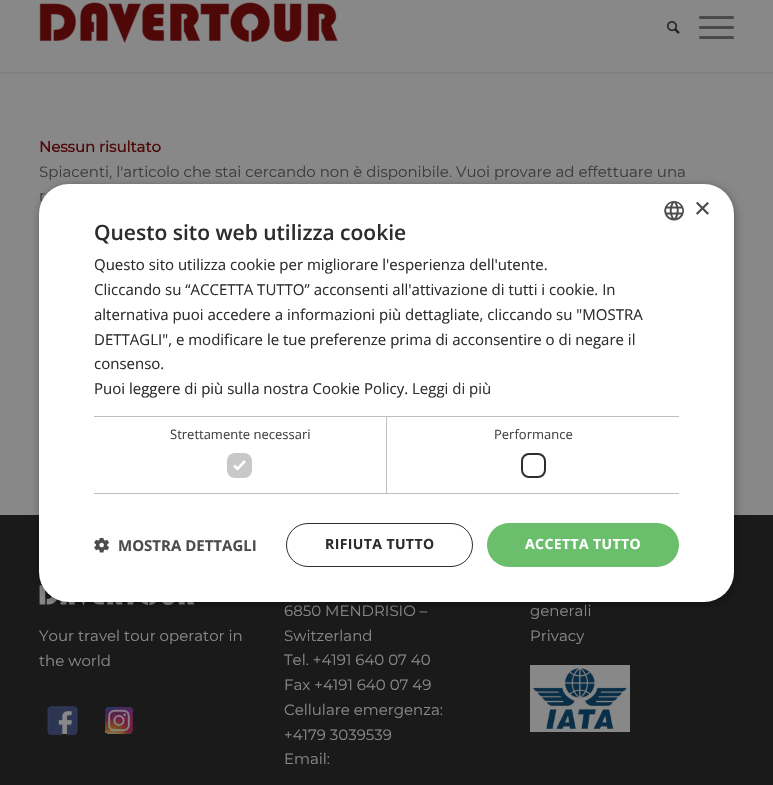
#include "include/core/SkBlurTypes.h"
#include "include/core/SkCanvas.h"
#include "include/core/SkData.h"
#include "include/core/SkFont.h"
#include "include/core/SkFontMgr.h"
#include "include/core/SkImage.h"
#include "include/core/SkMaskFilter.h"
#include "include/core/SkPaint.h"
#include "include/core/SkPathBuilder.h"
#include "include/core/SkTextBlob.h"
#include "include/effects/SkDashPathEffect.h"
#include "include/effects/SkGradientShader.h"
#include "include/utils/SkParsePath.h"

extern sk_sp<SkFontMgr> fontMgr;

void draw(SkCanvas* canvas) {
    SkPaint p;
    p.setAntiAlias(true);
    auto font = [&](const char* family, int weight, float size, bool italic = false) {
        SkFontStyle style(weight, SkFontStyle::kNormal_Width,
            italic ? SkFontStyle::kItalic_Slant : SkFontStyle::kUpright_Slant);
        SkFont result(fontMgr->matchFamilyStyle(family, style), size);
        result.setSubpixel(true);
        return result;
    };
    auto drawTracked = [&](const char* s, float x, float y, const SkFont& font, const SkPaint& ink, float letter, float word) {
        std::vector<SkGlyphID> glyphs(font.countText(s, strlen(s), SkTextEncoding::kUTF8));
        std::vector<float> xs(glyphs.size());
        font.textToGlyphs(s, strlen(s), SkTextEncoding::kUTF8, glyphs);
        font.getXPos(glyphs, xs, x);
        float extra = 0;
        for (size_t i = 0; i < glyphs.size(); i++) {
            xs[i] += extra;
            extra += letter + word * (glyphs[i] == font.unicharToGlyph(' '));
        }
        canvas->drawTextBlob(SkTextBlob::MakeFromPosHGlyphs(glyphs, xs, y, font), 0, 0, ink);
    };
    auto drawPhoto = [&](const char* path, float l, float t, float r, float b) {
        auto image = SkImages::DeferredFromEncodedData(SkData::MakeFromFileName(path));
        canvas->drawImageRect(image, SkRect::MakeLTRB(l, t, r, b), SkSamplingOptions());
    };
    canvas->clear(0xFF888888);
    p.setColor(0x1A090909);
    p.setMaskFilter(SkMaskFilter::MakeBlur(kNormal_SkBlurStyle, 1));
    canvas->drawRect(SkRect::MakeLTRB(-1, -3, 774, 73), p);
    p.setMaskFilter(nullptr);
    p.setColor(0xFF888888);
    canvas->drawRect(SkRect::MakeLTRB(0, 0, 773, 72), p);
    drawPhoto("media/1.png", 39, 2, 338, 43);
    drawPhoto("media/2.png", 667, 21, 680, 34);
    p.setColor(0xFF494949);
    canvas->drawRoundRect(SkRect::MakeLTRB(699, 26, 734, 29), 1.5f, 1.5f, p);
    canvas->drawRoundRect(SkRect::MakeLTRB(699, 16, 734, 19), 1.5f, 1.5f, p);
    canvas->drawRoundRect(SkRect::MakeLTRB(699, 36, 734, 39), 1.5f, 1.5f, p);
    auto font1 = font("Montserrat", 700, 15);
    p.setColor(0xFF4E0909);
    canvas->drawString("Nessun risultato", 39, 152, font1, p);
    auto font2 = font("Montserrat", 100, 15);
    p.setColor(0xFF3C3C3C);
    canvas->drawString("Spiacenti, l'articolo che stai cercando non è disponibile. Vuoi provare ad effettuare una", 39, 177, font2, p);
    canvas->drawString("r", 39, 201, font2, p);
    p.setColor(0xFF1A1A1A);
    canvas->drawRect(SkRect::MakeLTRB(0, 515, 773, 785), p);
    drawPhoto("media/3.png", 39, 585, 195, 606);
    p.setColor(0xFF888888);
    canvas->drawString("Your travel tour operator in", 39, 641, font2, p);
    canvas->drawString("the world", 39, 666, font2, p);
    drawPhoto("media/4.png", 47, 706, 78, 736);
    drawPhoto("media/5.png", 105, 707, 133, 734);
    {
        const struct { const char* s; float x, y; } items[] = {
            {"6850 MENDRISIO –", 284, 616},
            {"Switzerland", 284, 641},
            {"Tel. +4191 640 07 40", 284, 665},
            {"Fax +4191 640 07 49", 284, 690},
            {"Cellulare emergenza:", 284, 715},
            {"+4179 3039539", 284, 740},
            {"Email:", 284, 764},
            {"generali", 530, 616},
            {"Privacy", 530, 641},
        };
        for (auto [s, x, y] : items) {
            canvas->drawString(s, x, y, font2, p);
        }
    }
    drawPhoto("media/6.png", 530, 665, 630, 732);
    p.setColor(0x59000000);
    p.setMaskFilter(SkMaskFilter::MakeBlur(kNormal_SkBlurStyle, 4));
    canvas->drawRoundRect(SkRect::MakeLTRB(40, 186, 735, 604), 30, 30, p);
    p.setMaskFilter(nullptr);
    p.setColor(0xFFFFFFFF);
    canvas->drawRoundRect(SkRect::MakeLTRB(39, 184, 734, 602), 30, 30, p);
    drawPhoto("media/7.png", 664, 201, 684, 221);
    auto font3 = font("Liberation Sans", 400, 29);
    p.setColor(0xFF4D4D4D);
    canvas->drawString("×", 694, 218, font3, p);
    auto font4 = font("Open Sans", 600, 21);
    p.setColor(0xFF2D2D2D);
    canvas->drawString("Questo sito web utilizza cookie", 94, 240, font4, p);
    auto font5 = font("Open Sans", 400, 15);
    {
        const struct { const char* s; float x, y; } items[] = {
            {"Questo sito utilizza cookie per migliorare l'esperienza dell'utente.", 94, 270},
            {"Cliccando su “ACCETTA TUTTO” acconsenti all'attivazione di tutti i cookie. In", 94, 295},
            {"alternativa puoi accedere a informazioni più dettagliate, cliccando su \"MOSTRA", 94, 320},
            {"DETTAGLI\", e modificare le tue preferenze prima di acconsentire o di negare il", 94, 345},
            {"consenso.", 94, 369},
            {"Puoi leggere di più sulla nostra Cookie Policy.", 94, 394},
        };
        for (auto [s, x, y] : items) {
            canvas->drawString(s, x, y, font5, p);
        }
    }
    p.setColor(0xFF333333);
    canvas->drawString("Leggi di più", 412, 394, font5, p);
    {
        const struct { float l, t, r, b; SkColor color; } items[] = {
            {94, 416, 679, 417, 0xFFC0C0C0},
            {386, 416, 387, 494, 0xFFC0C0C0},
            {94, 493, 679, 494, 0xFFC0C0C0},
        };
        for (auto [l, t, r, b, color] : items) {
            p.setColor(color);
            canvas->drawRect(SkRect::MakeLTRB(l, t, r, b), p);
        }
    }
    auto font6 = font("Open Sans", 400, 13);
    p.setColor(0xFF444444);
    canvas->drawString("Strettamente necessari", 170, 439, font6, p);
    p.setColor(0xFFC8C8C8);
    canvas->drawRoundRect(SkRect::MakeLTRB(227, 453, 252, 478), 8, 8, p);
    p.setStyle(SkPaint::kStroke_Style);
    p.setStrokeWidth(2.6f);
    p.setColor(0xFFFFFFFF);
    canvas->drawPath(SkPathBuilder().moveTo(234, 465.5f).lineTo(237.5f, 469).lineTo(245, 461).detach(), p);
    p.setStyle(SkPaint::kFill_Style);
    p.setColor(0xFF444444);
    canvas->drawString("Performance", 494, 439, font6, p);
    p.setStyle(SkPaint::kStroke_Style);
    p.setStrokeWidth(2);
    p.setColor(0xFF2D2D2D);
    canvas->drawRoundRect(SkRect::MakeLTRB(522, 454, 545, 477), 7, 7, p);
    drawPhoto("media/8.png", 94, 538, 109, 553);
    auto font7 = font("Open Sans", 700, 15);
    p.setStyle(SkPaint::kFill_Style);
    p.setColor(0xFF4D4D4D);
    canvas->drawString("MOSTRA DETTAGLI", 118, 551, font7, p);
    p.setStyle(SkPaint::kStroke_Style);
    p.setStrokeWidth(1);
    p.setColor(0xFF2D2D2D);
    canvas->drawRoundRect(SkRect::MakeLTRB(286.5f, 523.5f, 472.5f, 566.5f), 21.5f, 21.5f, p);
    auto font8 = font("Open Sans", 700, 14);
    p.setStyle(SkPaint::kFill_Style);
    drawTracked("RIFIUTA TUTTO", 325, 549, font8, p, 0.4f, 0);
    p.setColor(0xFF6BBE6B);
    canvas->drawRoundRect(SkRect::MakeLTRB(487, 523, 679, 567), 22, 22, p);
    p.setColor(0xFFFFFFFF);
    drawTracked("ACCETTA TUTTO", 525, 549, font8, p, 0.4f, 0);
}
